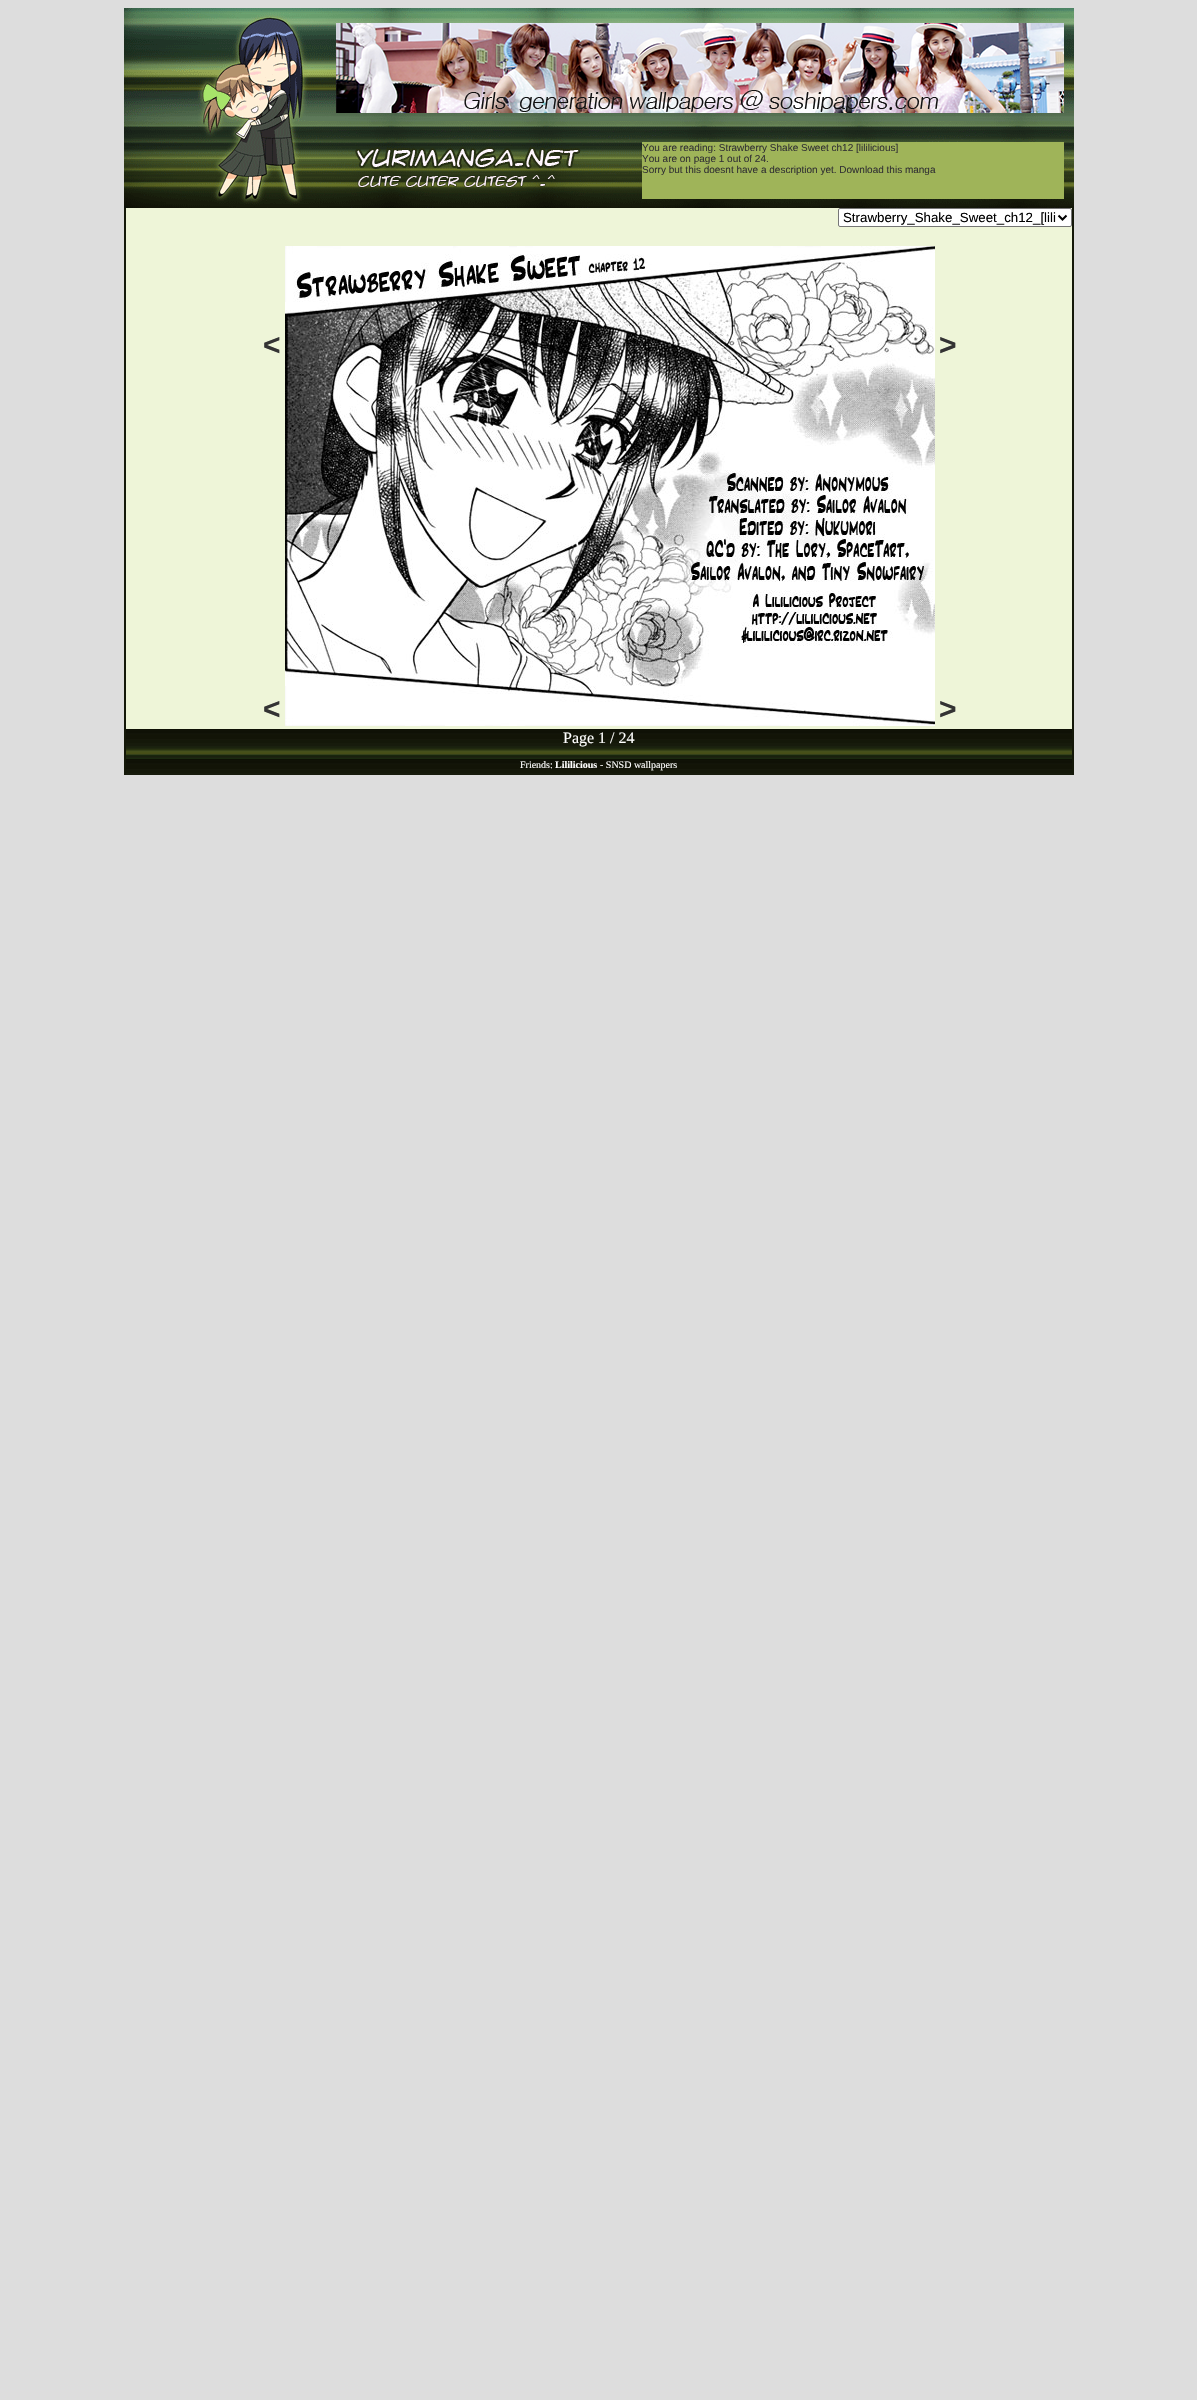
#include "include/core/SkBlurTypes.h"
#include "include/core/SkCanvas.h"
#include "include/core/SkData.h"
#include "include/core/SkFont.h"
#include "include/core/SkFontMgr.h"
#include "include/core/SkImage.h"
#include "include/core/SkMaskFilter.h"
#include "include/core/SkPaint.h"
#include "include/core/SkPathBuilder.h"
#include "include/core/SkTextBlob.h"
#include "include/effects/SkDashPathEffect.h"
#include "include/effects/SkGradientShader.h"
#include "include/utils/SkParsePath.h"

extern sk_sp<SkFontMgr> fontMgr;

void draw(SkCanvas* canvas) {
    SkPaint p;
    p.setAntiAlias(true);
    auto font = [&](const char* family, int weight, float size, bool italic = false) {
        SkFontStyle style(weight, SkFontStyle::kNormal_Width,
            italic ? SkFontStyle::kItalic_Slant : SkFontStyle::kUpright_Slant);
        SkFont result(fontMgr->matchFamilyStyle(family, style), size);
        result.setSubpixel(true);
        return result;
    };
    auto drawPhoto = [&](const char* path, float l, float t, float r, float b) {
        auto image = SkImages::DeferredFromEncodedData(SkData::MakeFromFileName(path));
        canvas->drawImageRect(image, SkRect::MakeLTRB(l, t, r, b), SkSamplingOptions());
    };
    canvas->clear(0xFFDDDDDD);
    drawPhoto("media/1.png", 124, 8, 1074, 22);
    drawPhoto("media/2.png", 124, 22, 336, 208);
    drawPhoto("media/3.png", 336, 22, 1066, 114);
    drawPhoto("media/4.png", 336, 23, 1064, 113);
    drawPhoto("media/5.png", 1066, 22, 1074, 208);
    drawPhoto("media/6.png", 336, 114, 1066, 142);
    drawPhoto("media/7.png", 336, 142, 642, 208);
    p.setColor(0xFF9FB459);
    canvas->drawRect(SkRect::MakeLTRB(642, 142, 1064, 199), p);
    auto font1 = font("Liberation Sans", 400, 10);
    p.setColor(0xFF333333);
    {
        const struct { const char* s; float x, y; } items[] = {
            {"You are reading: Strawberry Shake Sweet ch12 [lililicious]", 642, 151},
            {"You are on page 1 out of 24.", 642, 162},
            {"Sorry but this doesnt have a description yet. Download this manga", 642, 173},
        };
        for (auto [s, x, y] : items) {
            canvas->drawString(s, x, y, font1, p);
        }
    }
    drawPhoto("media/8.png", 1064, 142, 1066, 208);
    drawPhoto("media/9.png", 642, 199, 1064, 208);
    {
        const struct { float l, t, r, b; SkColor color; } items[] = {
            {126, 208, 1072, 729, 0xFFEEF5D8},
            {1072, 208, 1074, 775, 0xFF141809},
            {124, 208, 126, 775, 0xFF141809},
        };
        for (auto [l, t, r, b, color] : items) {
            p.setColor(color);
            canvas->drawRect(SkRect::MakeLTRB(l, t, r, b), p);
        }
    }
    p.setColor(0xFFFFFFFF);
    canvas->drawRoundRect(SkRect::MakeLTRB(838.5f, 208.5f, 1071.5f, 226.5f), 1.5f, 1.5f, p);
    p.setStyle(SkPaint::kStroke_Style);
    p.setStrokeWidth(1);
    p.setColor(0xFF767676);
    canvas->drawRoundRect(SkRect::MakeLTRB(838.5f, 208.5f, 1071.5f, 226.5f), 1.5f, 1.5f, p);
    p.setStrokeWidth(2);
    p.setColor(0xFF000000);
    canvas->drawPath(SkPathBuilder().moveTo(1058.5f, 215.5f).lineTo(1062.5f, 219.5f).lineTo(1066.5f, 215.5f).detach(), p);
    auto font2 = font("Liberation Sans", 400, 13.3f);
    p.setStyle(SkPaint::kFill_Style);
    canvas->drawString("Strawberry_Shake_Sweet_ch12_[lili", 843, 222, font2, p);
    auto font3 = font("Liberation Sans", 700, 30);
    p.setColor(0xFF333333);
    canvas->drawString("<", 263, 355, font3, p);
    drawPhoto("media/10.png", 285, 246, 935, 726);
    {
        const struct { const char* s; float x, y; } items[] = {
            {">", 939, 355},
            {"<", 263, 719},
            {">", 939, 719},
        };
        for (auto [s, x, y] : items) {
            canvas->drawString(s, x, y, font3, p);
        }
    }
    drawPhoto("media/11.png", 126, 729, 1072, 759);
    auto font4 = font("Liberation Serif", 400, 16);
    p.setColor(0xFFFFFFFF);
    canvas->drawString("Page 1 / 24", 563, 743, font4, p);
    drawPhoto("media/12.png", 126, 759, 1072, 775);
    auto font5 = font("Liberation Serif", 400, 10);
    canvas->drawString("Friends:", 520, 768, font5, p);
    auto font6 = font("Liberation Serif", 700, 10);
    canvas->drawString("Lililicious", 555, 768, font6, p);
    canvas->drawString("- SNSD wallpapers", 600, 768, font5, p);
}
